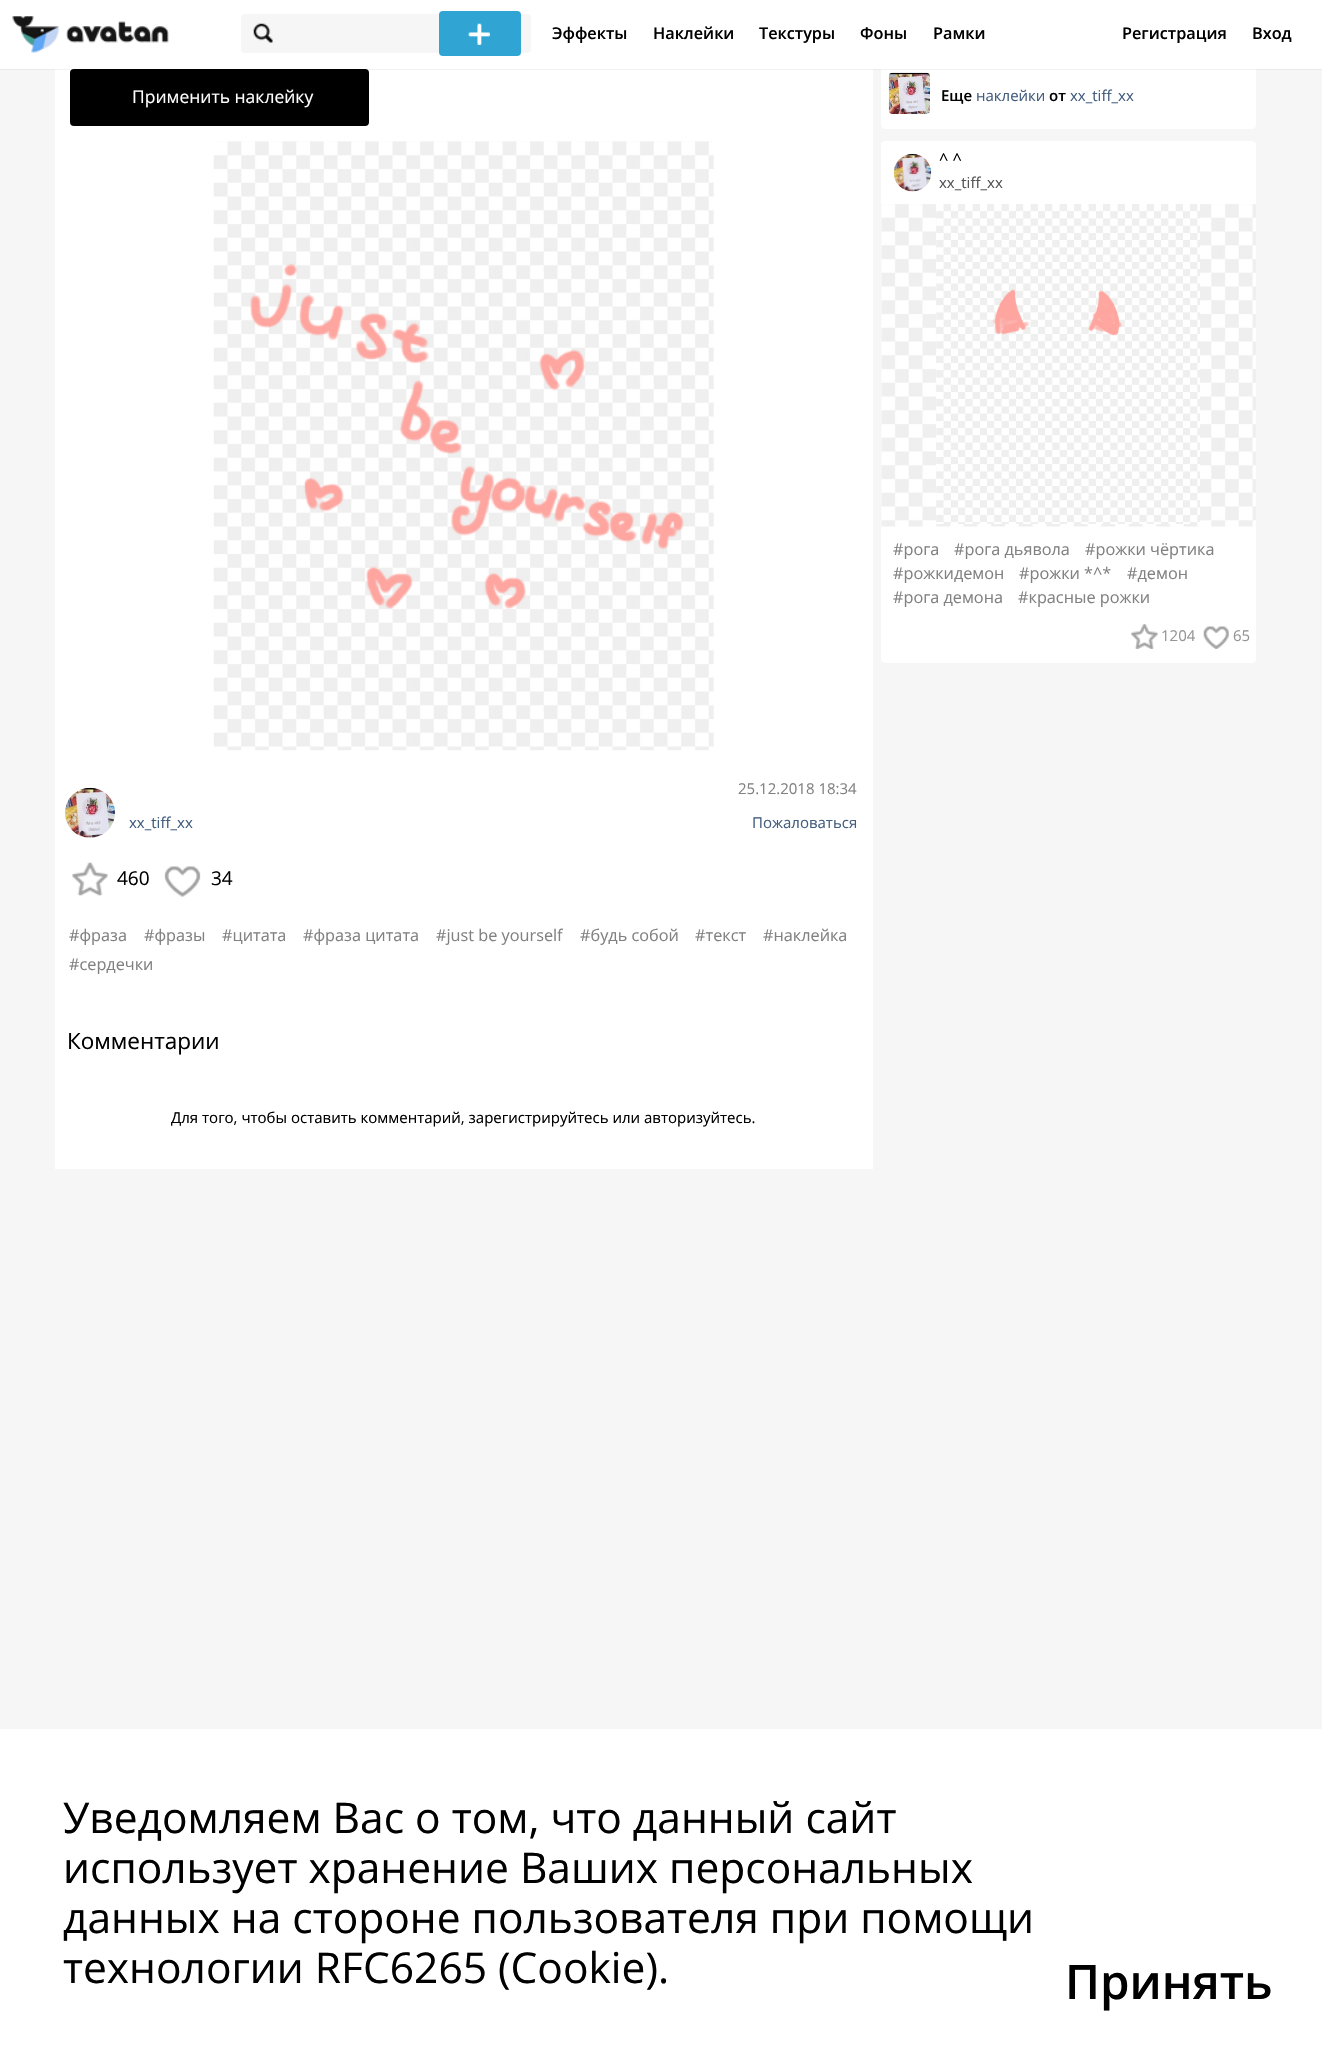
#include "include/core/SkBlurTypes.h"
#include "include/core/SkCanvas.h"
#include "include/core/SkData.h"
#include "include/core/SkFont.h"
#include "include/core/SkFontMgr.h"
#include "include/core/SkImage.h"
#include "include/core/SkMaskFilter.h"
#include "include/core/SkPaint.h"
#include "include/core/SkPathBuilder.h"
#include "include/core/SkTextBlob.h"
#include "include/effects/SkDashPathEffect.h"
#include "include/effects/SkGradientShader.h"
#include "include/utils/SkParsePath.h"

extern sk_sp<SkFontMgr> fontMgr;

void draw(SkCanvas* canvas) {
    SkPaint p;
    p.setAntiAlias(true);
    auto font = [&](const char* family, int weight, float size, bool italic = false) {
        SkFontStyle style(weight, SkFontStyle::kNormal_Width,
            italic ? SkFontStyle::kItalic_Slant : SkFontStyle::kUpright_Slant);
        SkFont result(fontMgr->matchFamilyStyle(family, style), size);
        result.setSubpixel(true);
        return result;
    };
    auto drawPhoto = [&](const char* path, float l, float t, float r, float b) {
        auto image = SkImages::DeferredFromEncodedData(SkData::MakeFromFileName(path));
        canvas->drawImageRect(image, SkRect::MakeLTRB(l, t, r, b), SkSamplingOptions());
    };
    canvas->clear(0xFFF6F6F6);
    p.setColor(0xFFFFFFFF);
    canvas->drawRect(SkRect::MakeLTRB(55, 69, 873, 1169), p);
    p.setColor(0xFF000000);
    canvas->drawRoundRect(SkRect::MakeLTRB(70, 69, 369, 126), 4, 4, p);
    p.setColor(0xFFFFFFFF);
    canvas->drawPath(SkPathBuilder().moveTo(881, 63).lineTo(1256, 63).lineTo(1256, 125).cubicTo(1256, 127, 1254, 129, 1252, 129).lineTo(885, 129).cubicTo(883, 129, 881, 127, 881, 125).close().detach(), p);
    p.setColor(0x4D000000);
    p.setMaskFilter(SkMaskFilter::MakeBlur(kNormal_SkBlurStyle, 0.5f));
    canvas->drawRect(SkRect::MakeLTRB(0, 0, 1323, 69), p);
    p.setMaskFilter(nullptr);
    p.setColor(0xFFFFFFFF);
    canvas->drawRect(SkRect::MakeLTRB(0, 0, 1322, 69), p);
    drawPhoto("media/1.png", 12, 16, 169, 53);
    p.setColor(0xFFF6F6F6);
    canvas->drawRoundRect(SkRect::MakeLTRB(241, 14, 531, 53), 4, 4, p);
    drawPhoto("media/2.png", 253, 23, 273, 43);
    p.setColor(0xFF30A5D4);
    canvas->drawRoundRect(SkRect::MakeLTRB(439, 11, 521, 56), 4, 4, p);
    drawPhoto("media/3.png", 468, 23, 490, 45);
    auto font1 = font("Open Sans", 600, 16.25f);
    p.setColor(0xFF000000);
    {
        const struct { const char* s; float x, y; } items[] = {
            {"Эффекты", 552, 39},
            {"Наклейки", 653, 39},
            {"Текстуры", 759, 39},
            {"Фоны", 860, 39},
            {"Рамки", 933, 39},
            {"Регистрация", 1122, 39},
            {"Вход", 1252, 39},
        };
        for (auto [s, x, y] : items) {
            canvas->drawString(s, x, y, font1, p);
        }
    }
    auto font2 = font("Open Sans", 400, 17.5f);
    p.setColor(0xFFFFFFFF);
    canvas->drawString("Применить наклейку", 132, 103, font2, p);
    drawPhoto("media/4.png", 214, 141, 714, 751);
    drawPhoto("media/5.png", 213, 141, 709, 746);
    drawPhoto("media/6.png", 65, 787, 115, 838);
    auto font3 = font("Open Sans", 400, 15);
    p.setColor(0xFF445E7F);
    canvas->drawString("xx_tiff_xx", 129, 828, font3, p);
    p.setColor(0xFF818181);
    canvas->drawString("25.12.2018 18:34", 738, 794, font3, p);
    p.setColor(0xFF445E7F);
    canvas->drawString("Пожаловаться", 752, 828, font3, p);
    drawPhoto("media/7.png", 72, 862, 108, 896);
    auto font4 = font("Open Sans", 400, 19);
    p.setColor(0xFF000000);
    canvas->drawString("460", 117, 885, font4, p);
    drawPhoto("media/8.png", 164, 866, 201, 897);
    canvas->drawString("34", 211, 885, font4, p);
    auto font5 = font("Open Sans", 400, 16.25f);
    p.setColor(0xFF818181);
    {
        const struct { const char* s; float x, y; } items[] = {
            {"#фраза", 69, 941},
            {"#фразы", 144, 941},
            {"#цитата", 222, 941},
            {"#фраза цитата", 303, 941},
            {"#just be yourself", 436, 941},
            {"#будь собой", 580, 941},
            {"#текст", 695, 941},
            {"#наклейка", 763, 941},
            {"#сердечки", 69, 970},
        };
        for (auto [s, x, y] : items) {
            canvas->drawString(s, x, y, font5, p);
        }
    }
    auto font6 = font("Open Sans", 400, 22.5f);
    p.setColor(0xFF000000);
    canvas->drawString("Комментарии", 67, 1049, font6, p);
    canvas->drawString("Для того, чтобы оставить комментарий, зарегистрируйтесь или авторизуйтесь.", 171, 1123, font3, p);
    drawPhoto("media/9.png", 888, 72, 930, 114);
    auto font7 = font("Open Sans", 600, 15);
    canvas->drawString("Еще", 941, 101, font7, p);
    p.setColor(0xFF445E7F);
    canvas->drawString("наклейки", 976, 101, font3, p);
    p.setColor(0xFF000000);
    canvas->drawString("от", 1049, 101, font7, p);
    p.setColor(0xFF445E7F);
    canvas->drawString("xx_tiff_xx", 1070, 101, font3, p);
    p.setColor(0xFFFFFFFF);
    canvas->drawRoundRect(SkRect::MakeLTRB(881, 141, 1256, 663), 4, 4, p);
    drawPhoto("media/10.png", 893, 154, 932, 192);
    p.setColor(0xFF000000);
    canvas->drawString("^ ^", 939, 165, font5, p);
    p.setColor(0xFF555555);
    canvas->drawString("xx_tiff_xx", 939, 188, font3, p);
    drawPhoto("media/11.png", 881, 204, 1256, 527);
    drawPhoto("media/12.png", 936, 204, 1200, 524);
    p.setColor(0xFF818181);
    {
        const struct { const char* s; float x, y; } items[] = {
            {"#рога", 893, 555},
            {"#рога дьявола", 954, 555},
            {"#рожки чёртика", 1085, 555},
            {"#рожкидемон", 893, 579},
            {"#рожки *^*", 1019, 579},
            {"#демон", 1127, 579},
            {"#рога демона", 893, 603},
            {"#красные рожки", 1018, 603},
        };
        for (auto [s, x, y] : items) {
            canvas->drawString(s, x, y, font5, p);
        }
    }
    drawPhoto("media/13.png", 1131, 623, 1158, 649);
    p.setColor(0xFF959595);
    canvas->drawString("1204", 1161, 641, font3, p);
    drawPhoto("media/14.png", 1203, 626, 1229, 649);
    canvas->drawString("65", 1233, 641, font3, p);
    p.setColor(0xFFFFFFFF);
    canvas->drawRect(SkRect::MakeLTRB(0, 1729, 1322, 2053), p);
    auto font8 = font("Open Sans", 400, 42.5f);
    p.setColor(0xFF000000);
    {
        const struct { const char* s; float x, y; } items[] = {
            {"Уведомляем Вас о том, что данный сайт", 63, 1833},
            {"использует хранение Ваших персональных", 63, 1883},
            {"данных на стороне пользователя при помощи", 63, 1933},
            {"технологии RFC6265 (Cookie).", 63, 1983},
        };
        for (auto [s, x, y] : items) {
            canvas->drawString(s, x, y, font8, p);
        }
    }
    auto font9 = font("Open Sans", 600, 47.5f);
    canvas->drawString("Принять", 1065, 1999, font9, p);
}
